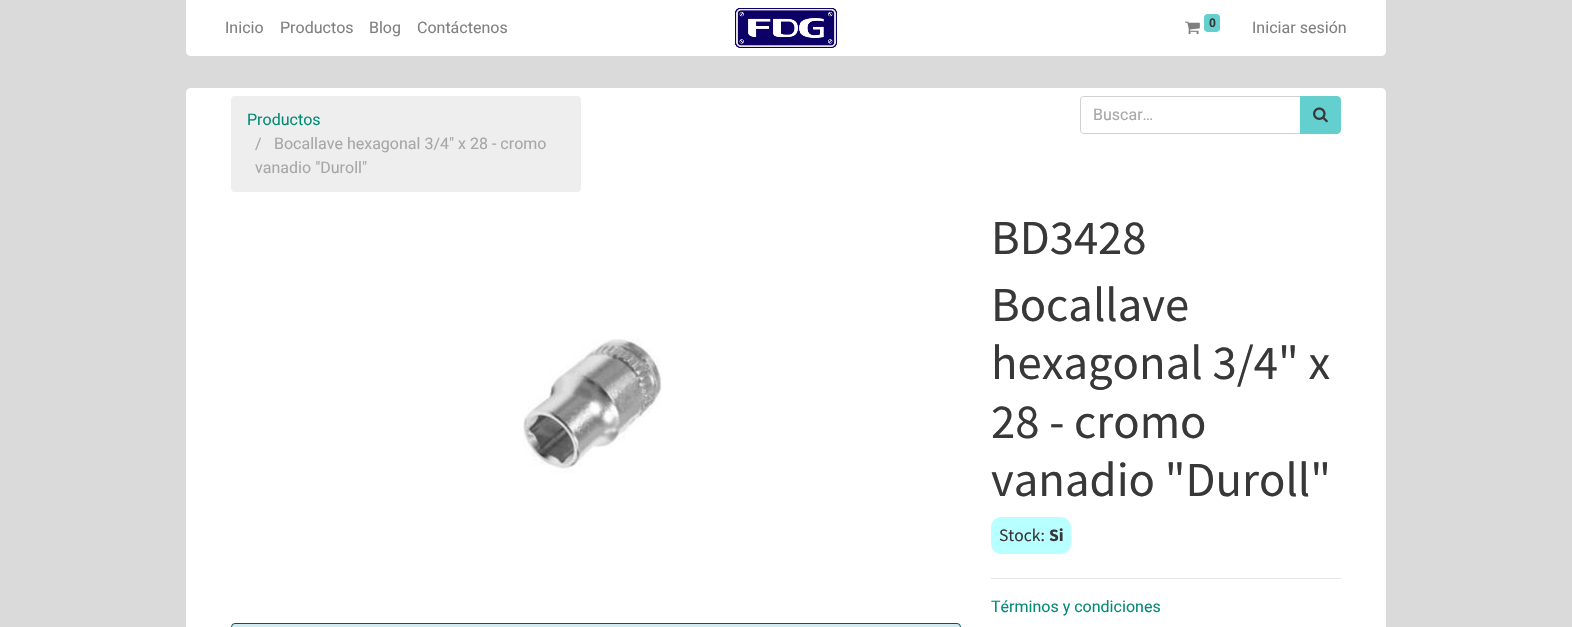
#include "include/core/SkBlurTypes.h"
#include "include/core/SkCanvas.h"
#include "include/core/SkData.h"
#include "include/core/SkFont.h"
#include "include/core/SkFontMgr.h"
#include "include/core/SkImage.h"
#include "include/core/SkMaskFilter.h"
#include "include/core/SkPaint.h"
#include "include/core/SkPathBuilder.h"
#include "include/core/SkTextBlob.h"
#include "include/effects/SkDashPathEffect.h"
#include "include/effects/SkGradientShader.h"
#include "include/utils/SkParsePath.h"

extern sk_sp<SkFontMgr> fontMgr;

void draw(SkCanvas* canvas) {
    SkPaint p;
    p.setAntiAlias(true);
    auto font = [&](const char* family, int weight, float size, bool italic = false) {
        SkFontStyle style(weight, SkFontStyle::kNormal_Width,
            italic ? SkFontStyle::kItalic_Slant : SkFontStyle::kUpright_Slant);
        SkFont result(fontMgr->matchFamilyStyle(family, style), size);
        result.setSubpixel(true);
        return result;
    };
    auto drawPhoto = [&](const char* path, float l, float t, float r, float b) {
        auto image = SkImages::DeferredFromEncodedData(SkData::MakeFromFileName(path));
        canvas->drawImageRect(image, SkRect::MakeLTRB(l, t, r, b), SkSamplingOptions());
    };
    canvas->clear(0xFFDADADA);
    p.setColor(0xFFFFFFFF);
    canvas->drawPath(SkPathBuilder().moveTo(186, 0).lineTo(1386, 0).lineTo(1386, 51).cubicTo(1386, 54, 1384, 56, 1381, 56).lineTo(191, 56).cubicTo(188, 56, 186, 54, 186, 51).close().detach(), p);
    auto font1 = font("Heebo", 400, 16);
    p.setColor(0xFF808080);
    {
        const struct { const char* s; float x, y; } items[] = {
            {"Inicio", 225, 33},
            {"Productos", 280, 33},
            {"Blog", 369, 33},
            {"Contáctenos", 417, 33},
        };
        for (auto [s, x, y] : items) {
            canvas->drawString(s, x, y, font1, p);
        }
    }
    drawPhoto("media/1.png", 735, 8, 837, 48);
    drawPhoto("media/2.png", 1185, 21, 1200, 35);
    p.setColor(0xFF63CFCF);
    canvas->drawRoundRect(SkRect::MakeLTRB(1204, 14, 1220, 32), 4, 4, p);
    auto font2 = font("Heebo", 700, 12);
    p.setColor(0xFF383838);
    canvas->drawString("0", 1209, 27, font2, p);
    p.setColor(0xFF808080);
    canvas->drawString("Iniciar sesión", 1252, 33, font1, p);
    p.setColor(0xFFFFFFFF);
    canvas->drawPath(SkPathBuilder().moveTo(191, 88).lineTo(1381, 88).cubicTo(1384, 88, 1386, 90, 1386, 93).lineTo(1386, 627).lineTo(186, 627).lineTo(186, 93).cubicTo(186, 90, 188, 88, 191, 88).close().detach(), p);
    p.setColor(0xFFEEEEEE);
    canvas->drawRoundRect(SkRect::MakeLTRB(231, 96, 581, 192), 4, 4, p);
    p.setColor(0xFF048B76);
    canvas->drawString("Productos", 247, 125, font1, p);
    p.setColor(0xFFA7A7A7);
    {
        const struct { const char* s; float x, y; } items[] = {
            {"/", 255, 149},
            {"Bocallave hexagonal 3/4\" x 28 - cromo", 274, 149},
            {"vanadio \"Duroll\"", 255, 173},
        };
        for (auto [s, x, y] : items) {
            canvas->drawString(s, x, y, font1, p);
        }
    }
    p.setStyle(SkPaint::kStroke_Style);
    p.setStrokeWidth(1);
    p.setColor(0xFFD1D1D1);
    canvas->drawPath(SkPathBuilder().moveTo(1084, 96.5f).lineTo(1300.5f, 96.5f).lineTo(1300.5f, 133.5f).lineTo(1084, 133.5f).cubicTo(1082, 133.5f, 1080.5f, 132, 1080.5f, 130).lineTo(1080.5f, 100).cubicTo(1080.5f, 98, 1082, 96.5f, 1084, 96.5f).close().detach(), p);
    p.setStyle(SkPaint::kFill_Style);
    p.setColor(0xFFA7A7A7);
    canvas->drawString("Buscar…", 1093, 120, font1, p);
    p.setColor(0xFF63CFCF);
    canvas->drawPath(SkPathBuilder().moveTo(1300.5f, 96.5f).lineTo(1337, 96.5f).cubicTo(1339, 96.5f, 1340.5f, 98, 1340.5f, 100).lineTo(1340.5f, 130).cubicTo(1340.5f, 132, 1339, 133.5f, 1337, 133.5f).lineTo(1300.5f, 133.5f).close().detach(), p);
    p.setStyle(SkPaint::kStroke_Style);
    canvas->drawPath(SkPathBuilder().moveTo(1300.5f, 96.5f).lineTo(1337, 96.5f).cubicTo(1339, 96.5f, 1340.5f, 98, 1340.5f, 100).lineTo(1340.5f, 130).cubicTo(1340.5f, 132, 1339, 133.5f, 1337, 133.5f).lineTo(1300.5f, 133.5f).close().detach(), p);
    drawPhoto("media/3.png", 1313, 107, 1328, 123);
    drawPhoto("media/4.png", 523, 339, 662, 474);
    p.setStyle(SkPaint::kFill_Style);
    p.setColor(0xFFD1ECF1);
    canvas->drawPath(SkPathBuilder().moveTo(235, 623).lineTo(957, 623).cubicTo(959, 623, 961, 625, 961, 627).lineTo(231, 627).cubicTo(231, 625, 233, 623, 235, 623).close().detach(), p);
    p.setStyle(SkPaint::kStroke_Style);
    p.setColor(0xFF0C5460);
    canvas->drawRoundRect(SkRect::MakeLTRB(231.5f, 623.5f, 960.5f, 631.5f), 3.5f, 3.5f, p);
    auto font3 = font("Source Sans Pro", 400, 48.75f);
    p.setStyle(SkPaint::kFill_Style);
    p.setColor(0xFF383838);
    {
        const struct { const char* s; float x, y; } items[] = {
            {"BD3428", 991, 254},
            {"Bocallave", 991, 321},
            {"hexagonal 3/4\" x", 991, 379},
            {"28 - cromo", 991, 438},
            {"vanadio \"Duroll\"", 991, 496},
        };
        for (auto [s, x, y] : items) {
            canvas->drawString(s, x, y, font3, p);
        }
    }
    p.setColor(0xFFB8FFFF);
    canvas->drawRoundRect(SkRect::MakeLTRB(991, 517, 1071, 554), 10, 10, p);
    auto font4 = font("Source Sans Pro", 400, 17.5f);
    p.setColor(0xFF383838);
    canvas->drawString("Stock:", 999, 541, font4, p);
    auto font5 = font("Source Sans Pro", 700, 17.5f);
    canvas->drawString("Si", 1049, 541, font5, p);
    p.setColor(0xFFE6E6E6);
    canvas->drawRect(SkRect::MakeLTRB(991, 578, 1341, 579), p);
    p.setColor(0xFF048B76);
    canvas->drawString("Términos y condiciones", 991, 612, font1, p);
}
